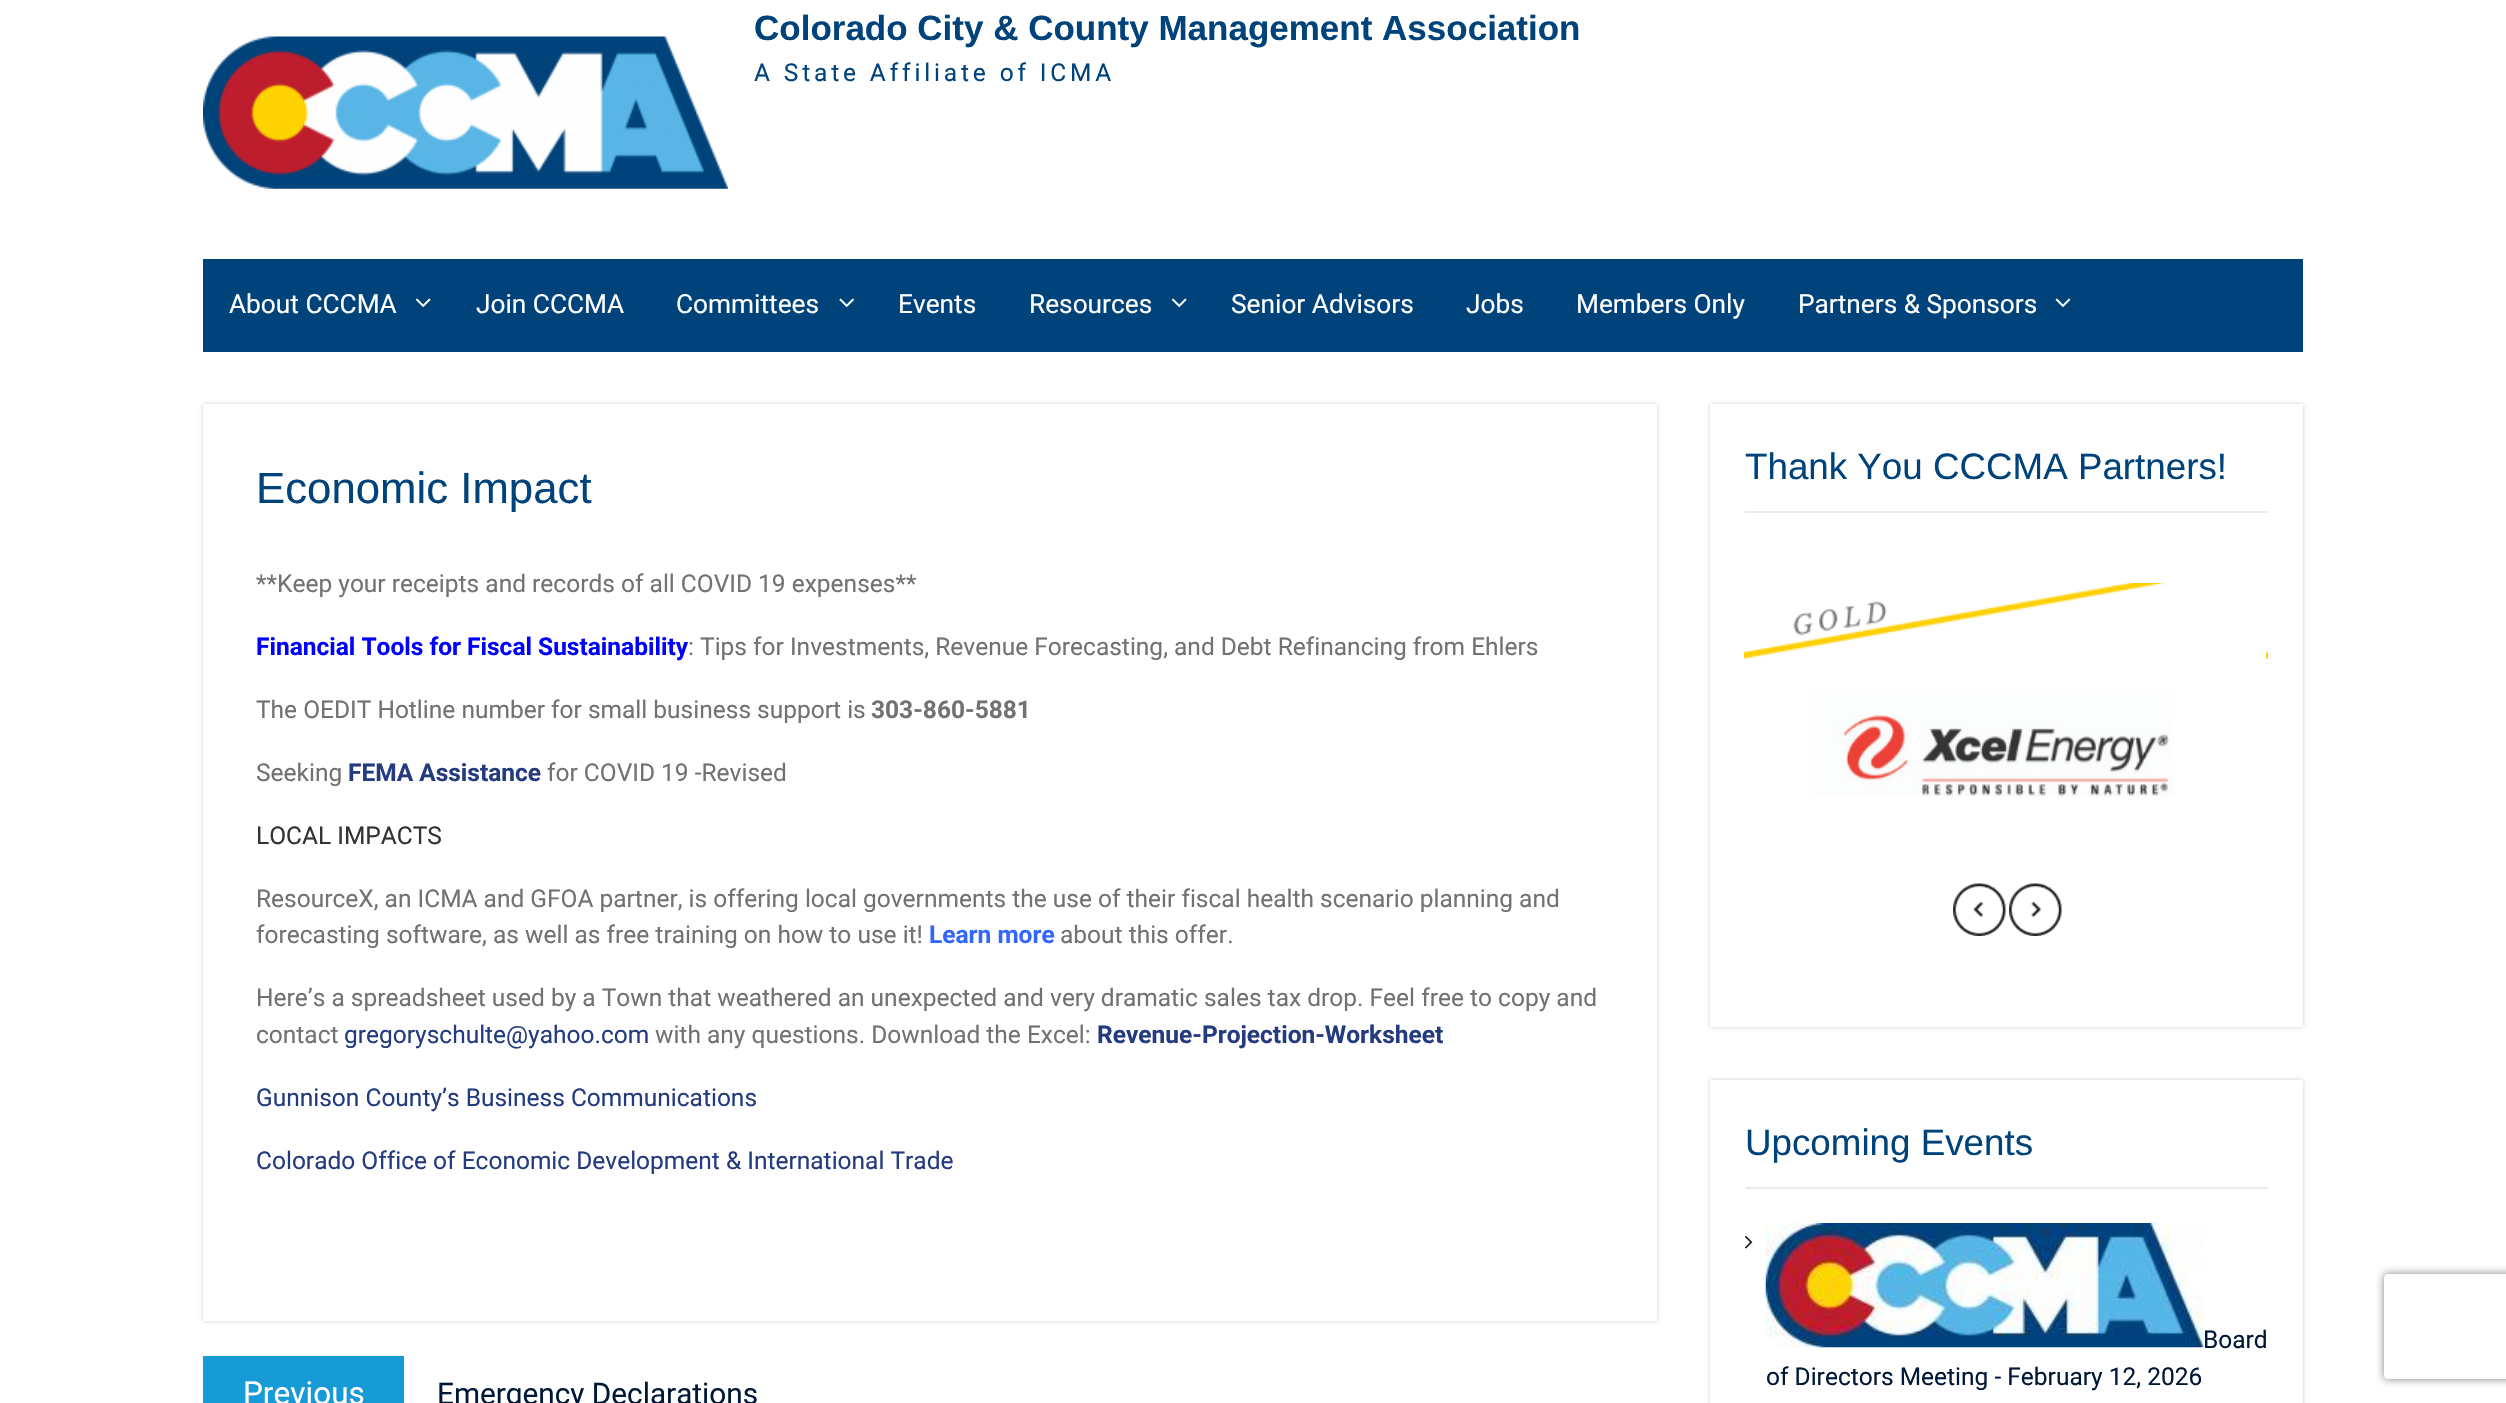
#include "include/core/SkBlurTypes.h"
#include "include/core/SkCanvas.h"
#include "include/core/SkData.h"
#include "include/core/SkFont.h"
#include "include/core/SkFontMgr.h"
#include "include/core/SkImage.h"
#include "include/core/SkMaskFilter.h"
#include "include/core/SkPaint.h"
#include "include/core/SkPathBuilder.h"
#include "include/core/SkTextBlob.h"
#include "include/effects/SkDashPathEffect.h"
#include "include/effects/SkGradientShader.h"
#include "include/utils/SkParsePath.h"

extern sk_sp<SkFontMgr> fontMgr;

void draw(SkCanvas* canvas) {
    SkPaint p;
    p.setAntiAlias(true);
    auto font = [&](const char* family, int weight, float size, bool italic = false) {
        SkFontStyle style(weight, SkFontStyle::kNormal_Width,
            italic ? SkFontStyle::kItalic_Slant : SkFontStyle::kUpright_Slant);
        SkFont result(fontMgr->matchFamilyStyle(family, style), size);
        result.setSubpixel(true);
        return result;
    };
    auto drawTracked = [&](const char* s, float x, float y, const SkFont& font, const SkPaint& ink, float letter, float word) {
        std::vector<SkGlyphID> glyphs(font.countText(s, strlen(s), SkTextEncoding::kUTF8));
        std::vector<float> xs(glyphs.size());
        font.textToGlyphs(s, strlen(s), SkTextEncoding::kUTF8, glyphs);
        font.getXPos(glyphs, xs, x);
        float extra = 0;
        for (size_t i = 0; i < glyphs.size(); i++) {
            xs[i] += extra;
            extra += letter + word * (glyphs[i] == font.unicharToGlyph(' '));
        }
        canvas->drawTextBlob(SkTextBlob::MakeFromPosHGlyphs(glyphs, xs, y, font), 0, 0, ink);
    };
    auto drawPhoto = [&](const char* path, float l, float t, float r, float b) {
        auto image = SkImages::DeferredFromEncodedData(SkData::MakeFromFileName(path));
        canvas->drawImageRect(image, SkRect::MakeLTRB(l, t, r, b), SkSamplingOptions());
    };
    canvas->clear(0xFFFFFFFF);
    drawPhoto("media/1.png", 203, 36, 728, 189);
    auto font1 = font("Liberation Sans", 700, 35);
    p.setColor(0xFF00437B);
    canvas->drawString("Colorado City & County Management Association", 754, 40, font1, p);
    auto font2 = font("Roboto", 400, 24.5f);
    drawTracked("A State Affiliate of ICMA", 754, 81, font2, p, 3.85f, 0);
    canvas->drawRect(SkRect::MakeLTRB(203, 259, 2303, 352), p);
    auto font3 = font("Roboto", 400, 26.25f);
    p.setColor(0xFFFFFFFF);
    canvas->drawString("About CCCMA", 229, 313, font3, p);
    drawPhoto("media/2.png", 415, 298, 431, 307);
    canvas->drawString("Join CCCMA", 476, 313, font3, p);
    canvas->drawString("Committees", 676, 313, font3, p);
    drawPhoto("media/3.png", 839, 298, 854, 307);
    canvas->drawString("Events", 898, 313, font3, p);
    canvas->drawString("Resources", 1029, 313, font3, p);
    drawPhoto("media/2.png", 1171, 298, 1187, 307);
    {
        const struct { const char* s; float x, y; } items[] = {
            {"Senior Advisors", 1231, 313},
            {"Jobs", 1466, 313},
            {"Members Only", 1576, 313},
            {"Partners & Sponsors", 1798, 313},
        };
        for (auto [s, x, y] : items) {
            canvas->drawString(s, x, y, font3, p);
        }
    }
    drawPhoto("media/4.png", 2055, 298, 2071, 307);
    p.setColor(0xFFCFCFCF);
    p.setMaskFilter(SkMaskFilter::MakeBlur(kNormal_SkBlurStyle, 2));
    canvas->drawRect(SkRect::MakeLTRB(203, 404, 1657, 1321), p);
    p.setMaskFilter(nullptr);
    p.setColor(0xFFFFFFFF);
    canvas->drawRect(SkRect::MakeLTRB(203, 404, 1657, 1321), p);
    auto font4 = font("Liberation Sans", 400, 43.75f);
    p.setColor(0xFF00437B);
    canvas->drawString("Economic Impact", 256, 503, font4, p);
    p.setColor(0xFF727272);
    canvas->drawString("**Keep your receipts and records of all COVID 19 expenses**", 256, 592, font2, p);
    auto font5 = font("Roboto", 700, 24.5f);
    p.setColor(0xFF0000FF);
    canvas->drawString("Financial Tools for Fiscal Sustainability", 256, 655, font5, p);
    p.setColor(0xFF727272);
    canvas->drawString(": Tips for Investments, Revenue Forecasting, and Debt Refinancing from Ehlers", 688, 655, font2, p);
    canvas->drawString("The OEDIT Hotline number for small business support is", 256, 718, font2, p);
    canvas->drawString("303-860-5881", 871, 718, font5, p);
    canvas->drawString("Seeking", 256, 781, font2, p);
    p.setColor(0xFF253B80);
    canvas->drawString("FEMA Assistance", 348, 781, font5, p);
    p.setColor(0xFF727272);
    canvas->drawString("for COVID 19 -Revised", 547, 781, font2, p);
    p.setColor(0xFF333333);
    canvas->drawString("LOCAL IMPACTS", 256, 844, font2, p);
    p.setColor(0xFF727272);
    canvas->drawString("ResourceX, an ICMA and GFOA partner, is offering local governments the use of their fiscal health scenario planning and", 256, 907, font2, p);
    canvas->drawString("forecasting software, as well as free training on how to use it!", 256, 943, font2, p);
    p.setColor(0xFF3366FF);
    canvas->drawString("Learn more", 929, 943, font5, p);
    p.setColor(0xFF727272);
    {
        const struct { const char* s; float x, y; } items[] = {
            {"about this offer.", 1060, 943},
            {"Here’s a spreadsheet used by a Town that weathered an unexpected and very dramatic sales tax drop. Feel free to copy and", 256, 1006},
            {"contact", 256, 1043},
        };
        for (auto [s, x, y] : items) {
            canvas->drawString(s, x, y, font2, p);
        }
    }
    p.setColor(0xFF253B80);
    canvas->drawString("gregoryschulte@yahoo.com", 344, 1043, font2, p);
    p.setColor(0xFF727272);
    canvas->drawString("with any questions. Download the Excel:", 655, 1043, font2, p);
    p.setColor(0xFF253B80);
    canvas->drawString("Revenue-Projection-Worksheet", 1097, 1043, font5, p);
    canvas->drawString("Gunnison County’s Business Communications", 256, 1106, font2, p);
    canvas->drawString("Colorado Office of Economic Development & International Trade", 256, 1169, font2, p);
    p.setColor(0xFF179BD7);
    canvas->drawRect(SkRect::MakeLTRB(203, 1356, 404, 1403), p);
    auto font6 = font("Roboto", 400, 31.5f);
    p.setColor(0xFFFFFFFF);
    canvas->drawString("Previous", 243, 1404, font6, p);
    auto font7 = font("Roboto", 400, 29.75f);
    p.setColor(0xFF001837);
    canvas->drawString("Emergency Declarations", 437, 1404, font7, p);
    p.setColor(0xFFCFCFCF);
    p.setMaskFilter(SkMaskFilter::MakeBlur(kNormal_SkBlurStyle, 2));
    canvas->drawRect(SkRect::MakeLTRB(1710, 404, 2303, 1027), p);
    p.setMaskFilter(nullptr);
    p.setColor(0xFFFFFFFF);
    canvas->drawRect(SkRect::MakeLTRB(1710, 404, 2303, 1027), p);
    p.setColor(0xFFE7ECEF);
    canvas->drawRect(SkRect::MakeLTRB(1745, 511, 2268, 513), p);
    auto font8 = font("Liberation Sans", 400, 36.75f);
    p.setColor(0xFF00437B);
    canvas->drawString("Thank You CCCMA Partners!", 1745, 479, font8, p);
    drawPhoto("media/5.png", 1744, 583, 2174, 797);
    drawPhoto("media/6.png", 2266, 651, 2268, 661);
    drawPhoto("media/7.png", 1953, 883, 2006, 936);
    drawPhoto("media/8.png", 2009, 883, 2062, 936);
    canvas->save();
    canvas->clipPath(SkPathBuilder(SkPathFillType::kEvenOdd).moveTo(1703, 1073).lineTo(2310, 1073).lineTo(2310, 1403).lineTo(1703, 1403).close().moveTo(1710, 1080).lineTo(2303, 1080).lineTo(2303, 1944).lineTo(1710, 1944).close().detach(), true);
    p.setColor(0xFFCFCFCF);
    p.setMaskFilter(SkMaskFilter::MakeBlur(kNormal_SkBlurStyle, 2));
    canvas->drawRect(SkRect::MakeLTRB(1710, 1080, 2303, 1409), p);
    p.setMaskFilter(nullptr);
    canvas->restore();
    p.setColor(0xFFE7ECEF);
    canvas->drawRect(SkRect::MakeLTRB(1745, 1187, 2268, 1189), p);
    p.setColor(0xFF00437B);
    canvas->drawString("Upcoming Events", 1745, 1155, font8, p);
    drawPhoto("media/9.png", 1745, 1235, 1753, 1249);
    drawPhoto("media/10.png", 1765, 1223, 2204, 1348);
    p.setColor(0xFF001837);
    canvas->drawString("Board", 2203, 1348, font2, p);
    canvas->drawString("of Directors Meeting - February 12, 2026", 1766, 1385, font2, p);
    canvas->save();
    canvas->clipPath(SkPathBuilder(SkPathFillType::kEvenOdd).moveTo(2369, 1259).lineTo(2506, 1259).lineTo(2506, 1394).lineTo(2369, 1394).close().moveTo(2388, 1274).lineTo(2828, 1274).cubicTo(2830, 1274, 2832, 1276, 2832, 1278).lineTo(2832, 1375).cubicTo(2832, 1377, 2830, 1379, 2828, 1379).lineTo(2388, 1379).cubicTo(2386, 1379, 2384, 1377, 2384, 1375).lineTo(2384, 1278).cubicTo(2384, 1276, 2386, 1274, 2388, 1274).close().detach(), true);
    p.setColor(0xFF808080);
    p.setMaskFilter(SkMaskFilter::MakeBlur(kNormal_SkBlurStyle, 4.5f));
    canvas->drawRoundRect(SkRect::MakeLTRB(2384, 1274, 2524, 1379), 4, 4, p);
    p.setMaskFilter(nullptr);
    canvas->restore();
}
